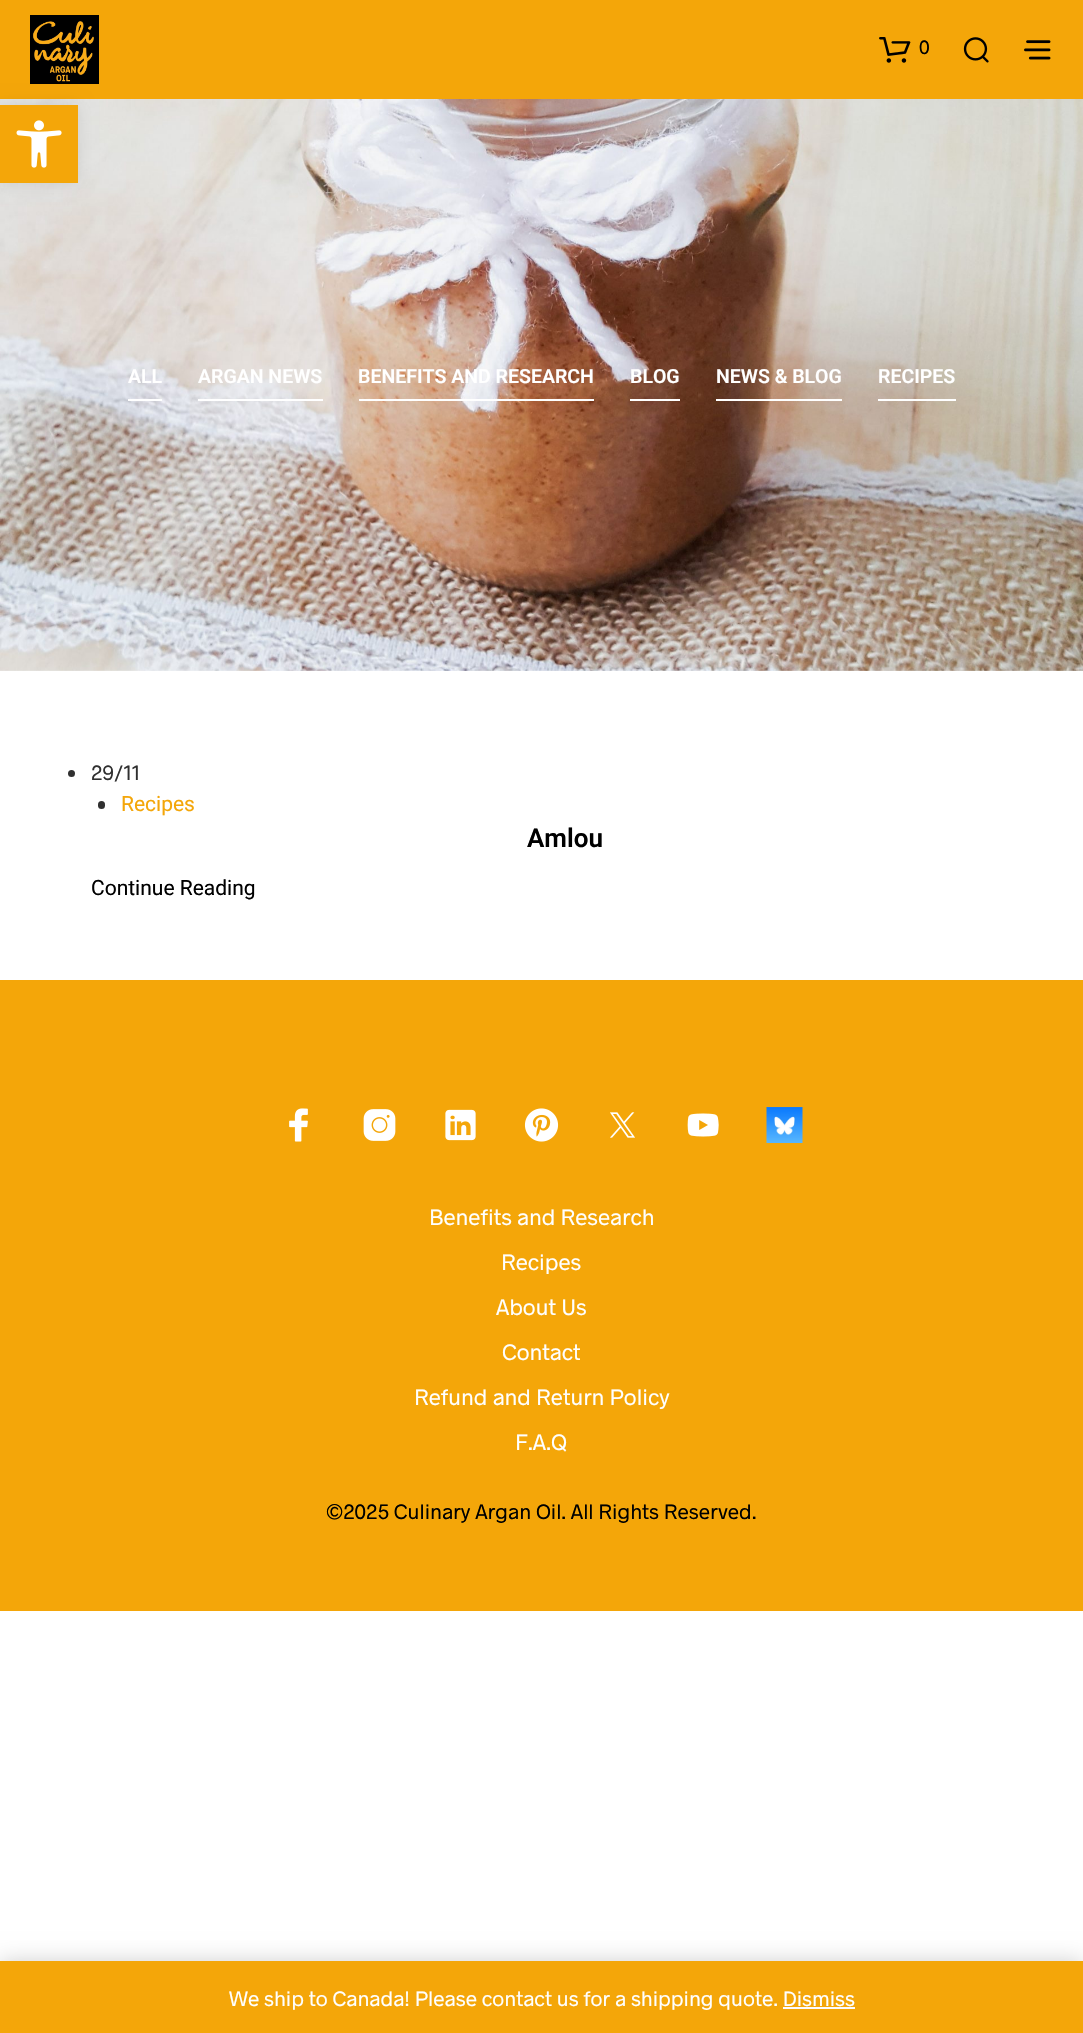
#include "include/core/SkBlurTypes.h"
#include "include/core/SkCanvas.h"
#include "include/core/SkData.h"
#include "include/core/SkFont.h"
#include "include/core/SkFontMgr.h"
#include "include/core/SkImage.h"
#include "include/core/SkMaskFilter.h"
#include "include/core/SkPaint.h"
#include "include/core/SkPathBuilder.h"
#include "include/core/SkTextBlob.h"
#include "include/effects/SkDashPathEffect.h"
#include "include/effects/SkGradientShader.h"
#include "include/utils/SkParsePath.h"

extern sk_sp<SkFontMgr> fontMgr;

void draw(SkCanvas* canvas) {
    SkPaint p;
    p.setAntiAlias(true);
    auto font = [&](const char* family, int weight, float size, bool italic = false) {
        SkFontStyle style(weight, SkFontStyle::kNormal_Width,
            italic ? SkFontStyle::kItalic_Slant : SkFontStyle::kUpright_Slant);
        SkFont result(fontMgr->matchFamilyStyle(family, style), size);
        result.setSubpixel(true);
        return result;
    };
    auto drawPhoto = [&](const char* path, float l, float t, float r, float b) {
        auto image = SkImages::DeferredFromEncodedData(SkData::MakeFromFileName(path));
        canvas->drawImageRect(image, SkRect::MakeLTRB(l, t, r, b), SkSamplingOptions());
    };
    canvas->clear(0xFFFFFFFF);
    p.setColor(0xFFF4A609);
    canvas->drawRect(SkRect::MakeLTRB(0, 0, 1083, 99), p);
    drawPhoto("media/2.png", 30, 15, 99, 84);
    drawPhoto("media/6.png", 0, 99, 1083, 671);
    p.setColor(0x1A000000);
    p.setMaskFilter(SkMaskFilter::MakeBlur(kNormal_SkBlurStyle, 7.5f));
    canvas->drawRect(SkRect::MakeLTRB(0, 105, 78, 183), p);
    p.setMaskFilter(nullptr);
    p.setColor(0xFFF4A609);
    canvas->drawRect(SkRect::MakeLTRB(0, 105, 78, 183), p);
    drawPhoto("media/1.png", 16, 120, 62, 168);
    drawPhoto("media/3.png", 879, 37, 911, 63);
    auto font1 = font("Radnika", 400, 19.5f);
    p.setColor(0xFF000000);
    canvas->drawString("0", 919, 54, font1, p);
    drawPhoto("media/4.png", 963, 37, 989, 63);
    drawPhoto("media/5.png", 1024, 40, 1051, 60);
    p.setColor(0xFFFFFFFF);
    canvas->drawRect(SkRect::MakeLTRB(128, 399, 162, 401), p);
    auto font2 = font("Roboto", 600, 19.5f);
    canvas->drawString("ALL", 128, 383, font2, p);
    canvas->drawRect(SkRect::MakeLTRB(198, 399, 323, 401), p);
    canvas->drawString("ARGAN NEWS", 198, 383, font2, p);
    canvas->drawRect(SkRect::MakeLTRB(359, 399, 594, 401), p);
    canvas->drawString("BENEFITS AND RESEARCH", 358, 383, font2, p);
    canvas->drawRect(SkRect::MakeLTRB(630, 399, 680, 401), p);
    canvas->drawString("BLOG", 630, 383, font2, p);
    canvas->drawRect(SkRect::MakeLTRB(716, 399, 842, 401), p);
    canvas->drawString("NEWS & BLOG", 716, 383, font2, p);
    canvas->drawRect(SkRect::MakeLTRB(878, 399, 956, 401), p);
    canvas->drawString("RECIPES", 878, 383, font2, p);
    p.setColor(0xFF303030);
    canvas->drawCircle(71.5f, 773.5f, 3.5f, p);
    auto font3 = font("Radnika", 400, 21);
    canvas->drawString("29/11", 91, 780, font3, p);
    canvas->drawRoundRect(SkRect::MakeLTRB(98, 801, 105, 809), 3.5f, 3.5f, p);
    auto font4 = font("Roboto", 400, 21);
    p.setColor(0xFFF4A609);
    canvas->drawString("Recipes", 121, 811, font4, p);
    auto font5 = font("Roboto", 600, 26);
    p.setColor(0xFF000000);
    canvas->drawString("Amlou", 527, 847, font5, p);
    canvas->drawString("Continue Reading", 91, 895, font4, p);
    p.setColor(0xFFF4A609);
    canvas->drawRect(SkRect::MakeLTRB(0, 980, 1083, 1611), p);
    drawPhoto("media/7.png", 289, 1108, 308, 1142);
    drawPhoto("media/8.png", 363, 1109, 396, 1141);
    drawPhoto("media/9.png", 445, 1109, 476, 1141);
    drawPhoto("media/10.png", 524, 1108, 559, 1142);
    drawPhoto("media/11.png", 610, 1112, 635, 1138);
    drawPhoto("media/12.png", 687, 1113, 719, 1137);
    drawPhoto("media/13.png", 766, 1107, 803, 1143);
    auto font6 = font("Radnika", 400, 22.5f);
    p.setColor(0xFFFFFFFF);
    {
        const struct { const char* s; float x, y; } items[] = {
            {"Benefits and Research", 429, 1225},
            {"Recipes", 501, 1270},
            {"About Us", 496, 1315},
            {"Contact", 502, 1360},
            {"Refund and Return Policy", 414, 1405},
            {"F.A.Q", 515, 1450},
        };
        for (auto [s, x, y] : items) {
            canvas->drawString(s, x, y, font6, p);
        }
    }
    p.setColor(0xFF000000);
    canvas->drawString("©2025 Culinary Argan Oil. All Rights Reserved.", 326, 1519, font3, p);
    p.setColor(0x33000000);
    p.setMaskFilter(SkMaskFilter::MakeBlur(kNormal_SkBlurStyle, 10.5f));
    canvas->drawRect(SkRect::MakeLTRB(0, 1962, 1083, 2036), p);
    p.setMaskFilter(nullptr);
    p.setColor(0xFFF4A609);
    canvas->drawRect(SkRect::MakeLTRB(0, 1961, 1083, 2033), p);
    p.setColor(0xFFFFFFFF);
    canvas->drawString("We ship to Canada! Please contact us for a shipping quote. Dismiss", 229, 2006, font3, p);
    p.setColor(0xFFFCFBFE);
    canvas->drawRect(SkRect::MakeLTRB(783, 2007, 855, 2009), p);
}
